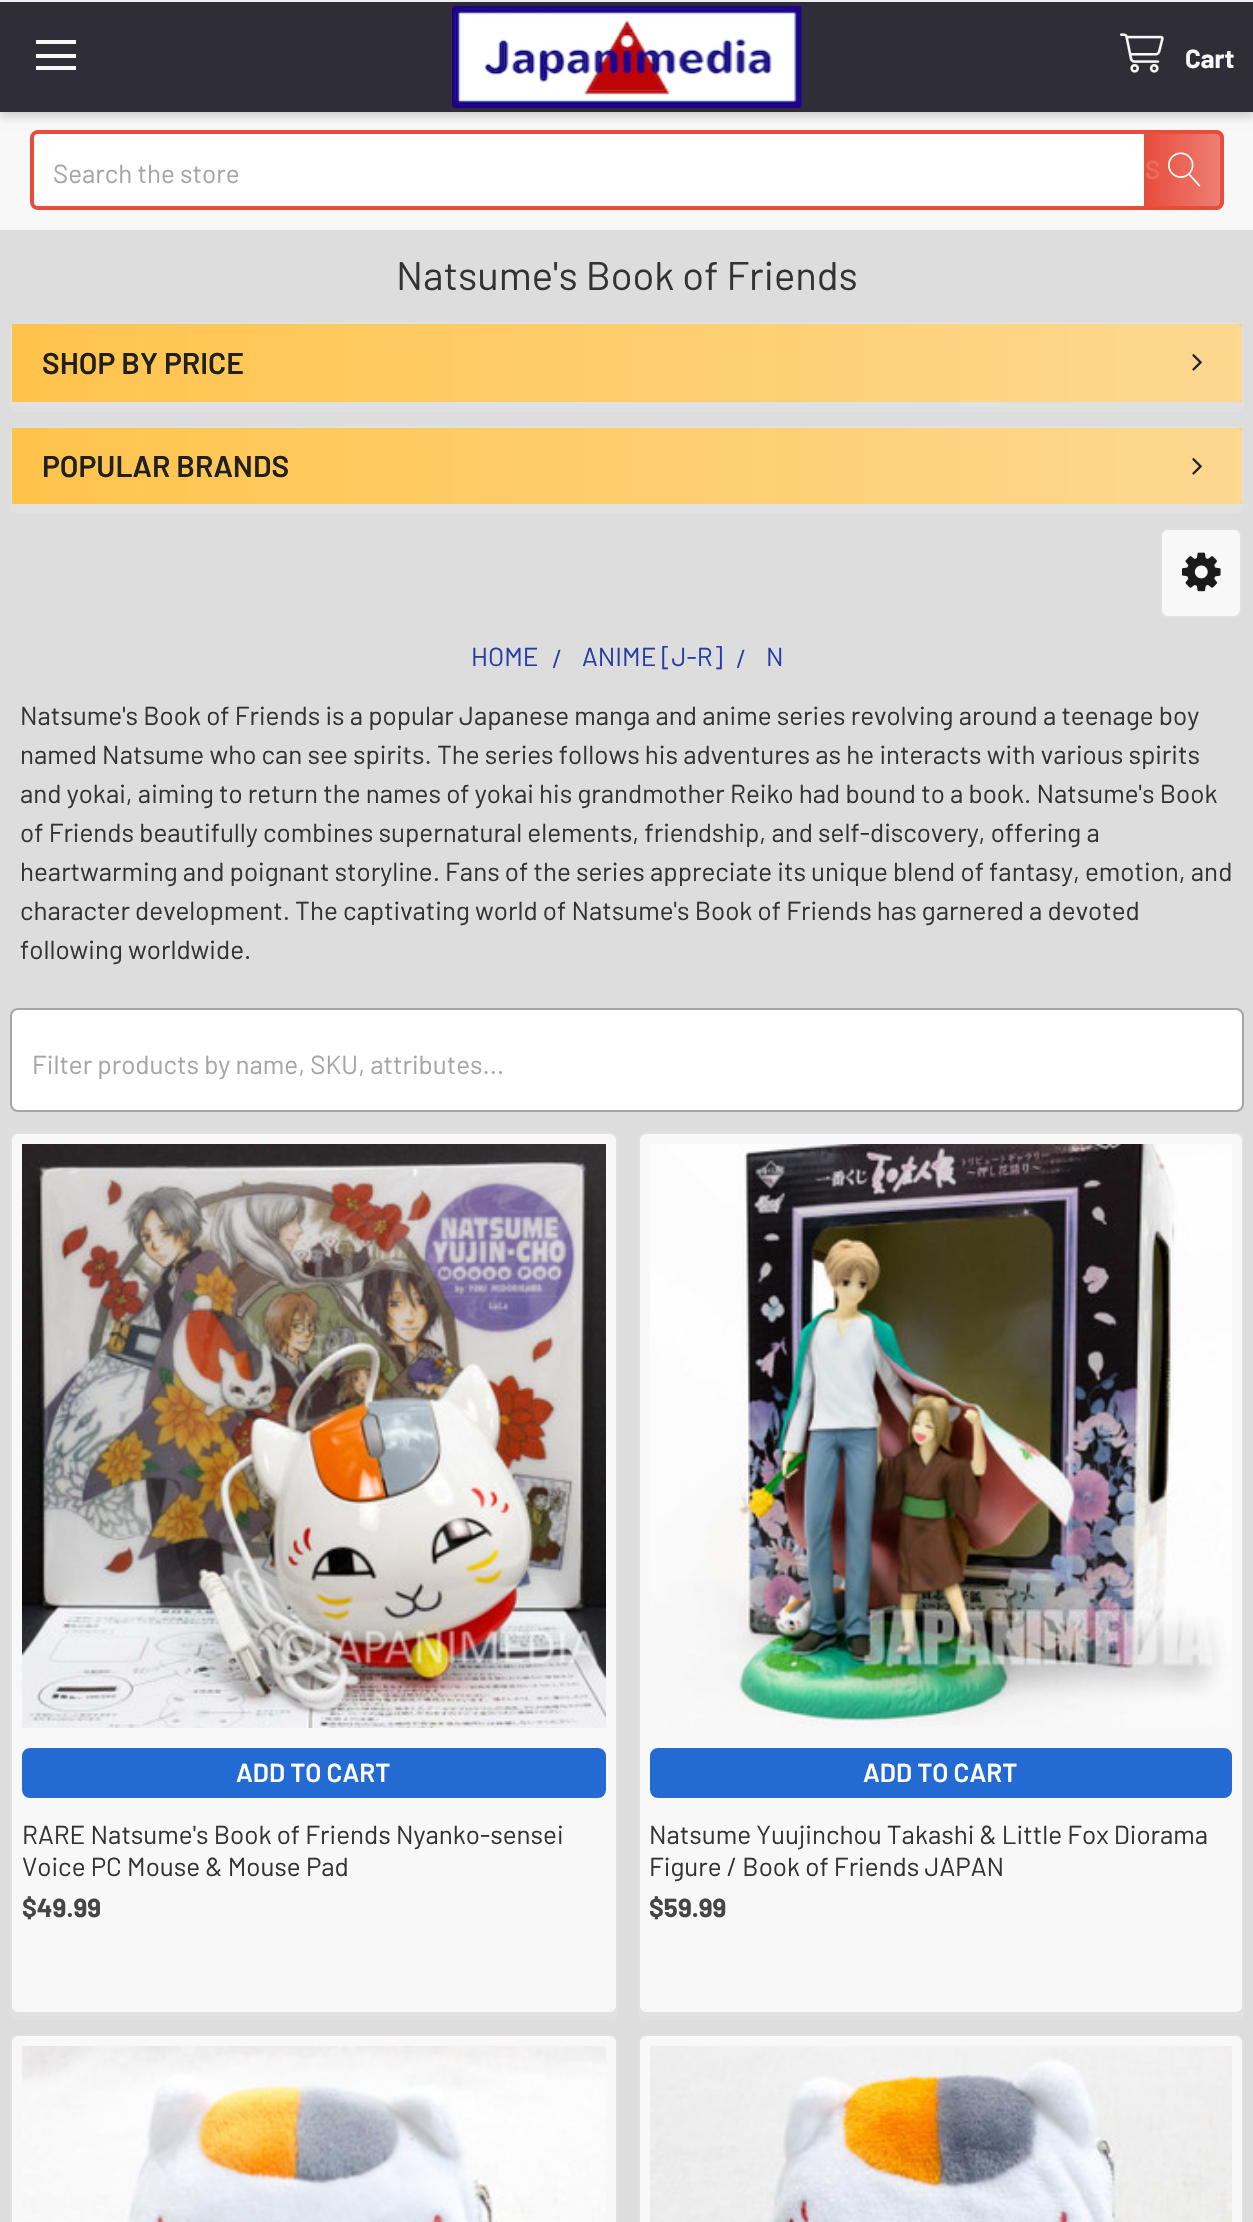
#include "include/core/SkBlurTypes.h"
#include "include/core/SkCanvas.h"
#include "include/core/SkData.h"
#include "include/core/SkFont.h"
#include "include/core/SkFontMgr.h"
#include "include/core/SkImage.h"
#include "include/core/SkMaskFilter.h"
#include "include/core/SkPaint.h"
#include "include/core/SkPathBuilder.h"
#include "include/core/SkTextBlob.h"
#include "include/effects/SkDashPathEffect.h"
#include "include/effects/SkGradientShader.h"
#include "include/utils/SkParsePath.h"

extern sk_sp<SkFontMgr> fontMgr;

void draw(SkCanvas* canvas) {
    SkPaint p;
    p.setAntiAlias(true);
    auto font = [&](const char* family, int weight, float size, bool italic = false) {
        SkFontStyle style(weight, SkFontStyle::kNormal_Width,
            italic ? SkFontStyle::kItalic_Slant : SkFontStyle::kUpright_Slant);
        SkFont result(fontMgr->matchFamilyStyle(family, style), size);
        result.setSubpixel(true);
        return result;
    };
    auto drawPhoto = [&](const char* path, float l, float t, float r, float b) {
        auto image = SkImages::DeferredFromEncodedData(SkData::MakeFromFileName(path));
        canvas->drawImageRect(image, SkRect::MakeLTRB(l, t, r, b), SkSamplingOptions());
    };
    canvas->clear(0xFFDDDDDD);
    p.setColor(0xFFF8F8F8);
    canvas->drawRect(SkRect::MakeLTRB(0, 112, 1253, 230), p);
    p.setColor(0xFFFFFFFF);
    canvas->drawRoundRect(SkRect::MakeLTRB(32, 132, 1222, 208), 6, 6, p);
    p.setStyle(SkPaint::kStroke_Style);
    p.setStrokeWidth(4);
    p.setColor(0xFFE74C3C);
    canvas->drawRoundRect(SkRect::MakeLTRB(32, 132, 1222, 208), 6, 6, p);
    p.setStyle(SkPaint::kFill_Style);
    {
        const SkColor colors[] = {0xFFE74C3C, 0xB3E74C3C};
        const float stops[] = {0, 1};
        const SkPoint ends[] = {{1144, 170}, {1224, 170}};
        p.setShader(SkGradientShader::MakeLinear(ends, colors, stops, 2, SkTileMode::kClamp));
        p.setAlpha(255);
    }
    canvas->drawPath(SkPathBuilder().moveTo(1144, 130).lineTo(1216, 130).cubicTo(1220.5f, 130, 1224, 133.5f, 1224, 138).lineTo(1224, 202).cubicTo(1224, 206.5f, 1220.5f, 210, 1216, 210).lineTo(1144, 210).close().detach(), p);
    p.setShader(nullptr);
    p.setColor(0x33000000);
    p.setMaskFilter(SkMaskFilter::MakeBlur(kNormal_SkBlurStyle, 5));
    canvas->drawRect(SkRect::MakeLTRB(0, 4, 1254, 116), p);
    p.setMaskFilter(nullptr);
    {
        const struct { float l, t, r, b; SkColor color; } items[] = {
            {0, 2, 1253, 112, 0xFF2F2D36},
            {0, 0, 1253, 2, 0xFFEEEEEE},
            {36, 54, 76, 58, 0xFFF8F8F8},
            {36, 40, 76, 44, 0xFFF8F8F8},
            {36, 66, 76, 70, 0xFFF8F8F8},
        };
        for (auto [l, t, r, b, color] : items) {
            p.setColor(color);
            canvas->drawRect(SkRect::MakeLTRB(l, t, r, b), p);
        }
    }
    drawPhoto("media/1.png", 452, 6, 802, 108);
    drawPhoto("media/2.png", 1120, 33, 1164, 73);
    auto font1 = font("Barlow", 700, 26);
    canvas->drawString("Cart", 1185, 68, font1, p);
    auto font2 = font("Barlow", 400, 26);
    p.setColor(0xFFA5A5A5);
    canvas->drawString("Search the store", 53, 183, font2, p);
    auto font3 = font("Barlow", 600, 26);
    p.setColor(0xFFEB6B5E);
    canvas->drawString("S", 1145, 179, font3, p);
    drawPhoto("media/3.png", 1168, 152, 1201, 187);
    auto font4 = font("Barlow", 400, 40);
    p.setColor(0xFF333333);
    canvas->drawString("Natsume's Book of Friends", 396, 290, font4, p);
    p.setColor(0xFFE1E1E1);
    canvas->drawPath(SkPathBuilder().moveTo(10, 398).lineTo(10, 404).cubicTo(10, 408, 14, 412, 18, 412).lineTo(1236, 412).cubicTo(1240, 412, 1244, 408, 1244, 404).lineTo(1244, 398).cubicTo(1244, 402, 1240, 406, 1236, 406).lineTo(18, 406).cubicTo(14, 406, 10, 402, 10, 398).close().detach(), p);
    p.setColor(0xFFF8F8F8);
    canvas->drawRoundRect(SkRect::MakeLTRB(11, 323, 1243, 405), 7, 7, p);
    p.setStyle(SkPaint::kStroke_Style);
    p.setStrokeWidth(2);
    p.setColor(0xFFE1E1E1);
    canvas->drawRoundRect(SkRect::MakeLTRB(11, 323, 1243, 405), 7, 7, p);
    p.setStyle(SkPaint::kFill_Style);
    {
        const SkColor colors[] = {0xFFFFC34B, 0x99FFC34B};
        const float stops[] = {0, 1};
        const SkPoint ends[] = {{12, 363}, {1242, 363}};
        p.setShader(SkGradientShader::MakeLinear(ends, colors, stops, 2, SkTileMode::kClamp));
        p.setAlpha(255);
    }
    canvas->drawRect(SkRect::MakeLTRB(12, 324, 1242, 402), p);
    p.setShader(nullptr);
    p.setColor(0xFFE1E1E1);
    canvas->drawRect(SkRect::MakeLTRB(12, 402, 1242, 404), p);
    auto font5 = font("Barlow", 600, 30);
    p.setColor(0xFF202020);
    canvas->drawString("SHOP BY PRICE", 42, 374, font5, p);
    drawPhoto("media/4.png", 1192, 354, 1202, 371);
    p.setColor(0xFFE1E1E1);
    canvas->drawPath(SkPathBuilder().moveTo(10, 500).lineTo(10, 506).cubicTo(10, 510, 14, 514, 18, 514).lineTo(1236, 514).cubicTo(1240, 514, 1244, 510, 1244, 506).lineTo(1244, 500).cubicTo(1244, 504, 1240, 508, 1236, 508).lineTo(18, 508).cubicTo(14, 508, 10, 504, 10, 500).close().detach(), p);
    p.setColor(0xFFF8F8F8);
    canvas->drawRoundRect(SkRect::MakeLTRB(11, 427, 1243, 507), 7, 7, p);
    p.setStyle(SkPaint::kStroke_Style);
    p.setColor(0xFFE1E1E1);
    canvas->drawRoundRect(SkRect::MakeLTRB(11, 427, 1243, 507), 7, 7, p);
    p.setStyle(SkPaint::kFill_Style);
    {
        const SkColor colors[] = {0xFFFFC34B, 0x99FFC34B};
        const float stops[] = {0, 1};
        const SkPoint ends[] = {{12, 466}, {1242, 466}};
        p.setShader(SkGradientShader::MakeLinear(ends, colors, stops, 2, SkTileMode::kClamp));
        p.setAlpha(255);
    }
    canvas->drawRect(SkRect::MakeLTRB(12, 428, 1242, 504), p);
    p.setShader(nullptr);
    p.setColor(0xFFE1E1E1);
    canvas->drawRect(SkRect::MakeLTRB(12, 504, 1242, 506), p);
    p.setColor(0xFF202020);
    canvas->drawString("POPULAR BRANDS", 42, 477, font5, p);
    drawPhoto("media/4.png", 1192, 458, 1202, 475);
    p.setColor(0xFFF8F8F8);
    canvas->drawRoundRect(SkRect::MakeLTRB(1161, 529, 1241, 617), 7, 7, p);
    p.setStyle(SkPaint::kStroke_Style);
    p.setColor(0xFFE0E1E4);
    canvas->drawRoundRect(SkRect::MakeLTRB(1161, 529, 1241, 617), 7, 7, p);
    drawPhoto("media/5.png", 1182, 552, 1221, 592);
    p.setStyle(SkPaint::kFill_Style);
    p.setColor(0xFF263DA8);
    {
        const struct { const char* s; float x, y; } items[] = {
            {"HOME", 471, 666},
            {"/", 552, 668},
            {"ANIME [J-R]", 582, 666},
            {"/", 736, 668},
            {"N", 766, 666},
        };
        for (auto [s, x, y] : items) {
            canvas->drawString(s, x, y, font2, p);
        }
    }
    p.setColor(0xFF333333);
    {
        const struct { const char* s; float x, y; } items[] = {
            {"Natsume's Book of Friends is a popular Japanese manga and anime series revolving around a teenage boy", 20, 725},
            {"named Natsume who can see spirits. The series follows his adventures as he interacts with various spirits", 20, 764},
            {"and yokai, aiming to return the names of yokai his grandmother Reiko had bound to a book. Natsume's Book", 20, 803},
            {"of Friends beautifully combines supernatural elements, friendship, and self-discovery, offering a", 20, 842},
            {"heartwarming and poignant storyline. Fans of the series appreciate its unique blend of fantasy, emotion, and", 20, 881},
            {"character development. The captivating world of Natsume's Book of Friends has garnered a devoted", 20, 920},
            {"following worldwide.", 20, 959},
        };
        for (auto [s, x, y] : items) {
            canvas->drawString(s, x, y, font2, p);
        }
    }
    p.setColor(0xFFFFFFFF);
    canvas->drawRoundRect(SkRect::MakeLTRB(11, 1009, 1243, 1111), 7, 7, p);
    p.setStyle(SkPaint::kStroke_Style);
    p.setColor(0xFFA5A5A5);
    canvas->drawRoundRect(SkRect::MakeLTRB(11, 1009, 1243, 1111), 7, 7, p);
    p.setStyle(SkPaint::kFill_Style);
    p.setColor(0xFFFFFFFF);
    canvas->drawRoundRect(SkRect::MakeLTRB(12, 1010, 1242, 1110), 8, 8, p);
    p.setColor(0xFFA5A5A5);
    canvas->drawString("Filter products by name, SKU, attributes...", 32, 1074, font2, p);
    p.setColor(0xFFE1E1E1);
    canvas->drawPath(SkPathBuilder().moveTo(10, 2006).cubicTo(10, 2012, 10, 2020, 18, 2020).lineTo(610, 2020).cubicTo(618, 2020, 618, 2012, 618, 2006).cubicTo(618, 2010, 614, 2014, 610, 2014).lineTo(18, 2014).cubicTo(14, 2014, 10, 2010, 10, 2006).close().detach(), p);
    p.setColor(0xFFF8F8F8);
    canvas->drawRoundRect(SkRect::MakeLTRB(11, 1133, 617, 2013), 7, 7, p);
    p.setStyle(SkPaint::kStroke_Style);
    p.setColor(0xFFE1E1E1);
    canvas->drawRoundRect(SkRect::MakeLTRB(11, 1133, 617, 2013), 7, 7, p);
    drawPhoto("media/6.png", 22, 1144, 606, 1728);
    p.setStyle(SkPaint::kFill_Style);
    p.setColor(0xFF246AD3);
    canvas->drawRoundRect(SkRect::MakeLTRB(23, 1749, 605, 1797), 7, 7, p);
    p.setStyle(SkPaint::kStroke_Style);
    canvas->drawRoundRect(SkRect::MakeLTRB(23, 1749, 605, 1797), 7, 7, p);
    p.setStyle(SkPaint::kFill_Style);
    p.setColor(0xFFFFFFFF);
    canvas->drawString("ADD TO CART", 236, 1782, font3, p);
    p.setColor(0xFF333333);
    canvas->drawString("RARE Natsume's Book of Friends Nyanko-sensei", 22, 1844, font2, p);
    canvas->drawString("Voice PC Mouse & Mouse Pad", 22, 1876, font2, p);
    p.setColor(0xFF454545);
    canvas->drawString("$49.99", 22, 1917, font1, p);
    p.setColor(0xFFE1E1E1);
    canvas->drawPath(SkPathBuilder().moveTo(638, 2006).cubicTo(638, 2012, 638, 2020, 646, 2020).lineTo(1236, 2020).cubicTo(1244, 2020, 1244, 2012, 1244, 2006).cubicTo(1244, 2010, 1240, 2014, 1236, 2014).lineTo(646, 2014).cubicTo(642, 2014, 638, 2010, 638, 2006).close().detach(), p);
    p.setColor(0xFFF8F8F8);
    canvas->drawRoundRect(SkRect::MakeLTRB(639, 1133, 1243, 2013), 7, 7, p);
    p.setStyle(SkPaint::kStroke_Style);
    p.setColor(0xFFE1E1E1);
    canvas->drawRoundRect(SkRect::MakeLTRB(639, 1133, 1243, 2013), 7, 7, p);
    drawPhoto("media/7.png", 650, 1144, 1232, 1728);
    p.setStyle(SkPaint::kFill_Style);
    p.setColor(0xFF246AD3);
    canvas->drawRoundRect(SkRect::MakeLTRB(651, 1749, 1231, 1797), 7, 7, p);
    p.setStyle(SkPaint::kStroke_Style);
    canvas->drawRoundRect(SkRect::MakeLTRB(651, 1749, 1231, 1797), 7, 7, p);
    p.setStyle(SkPaint::kFill_Style);
    p.setColor(0xFFFFFFFF);
    canvas->drawString("ADD TO CART", 863, 1782, font3, p);
    p.setColor(0xFF333333);
    canvas->drawString("Natsume Yuujinchou Takashi & Little Fox Diorama", 649, 1844, font2, p);
    canvas->drawString("Figure / Book of Friends JAPAN", 649, 1876, font2, p);
    p.setColor(0xFF454545);
    canvas->drawString("$59.99", 649, 1917, font1, p);
    p.setColor(0xFFF8F8F8);
    canvas->drawRoundRect(SkRect::MakeLTRB(11, 2035, 617, 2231), 7, 7, p);
    p.setStyle(SkPaint::kStroke_Style);
    p.setColor(0xFFE1E1E1);
    canvas->drawRoundRect(SkRect::MakeLTRB(11, 2035, 617, 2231), 7, 7, p);
    drawPhoto("media/8.png", 22, 2046, 606, 2222);
    p.setStyle(SkPaint::kFill_Style);
    p.setColor(0xFFF8F8F8);
    canvas->drawRoundRect(SkRect::MakeLTRB(639, 2035, 1243, 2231), 7, 7, p);
    p.setStyle(SkPaint::kStroke_Style);
    p.setColor(0xFFE1E1E1);
    canvas->drawRoundRect(SkRect::MakeLTRB(639, 2035, 1243, 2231), 7, 7, p);
    drawPhoto("media/9.png", 650, 2046, 1232, 2222);
}
